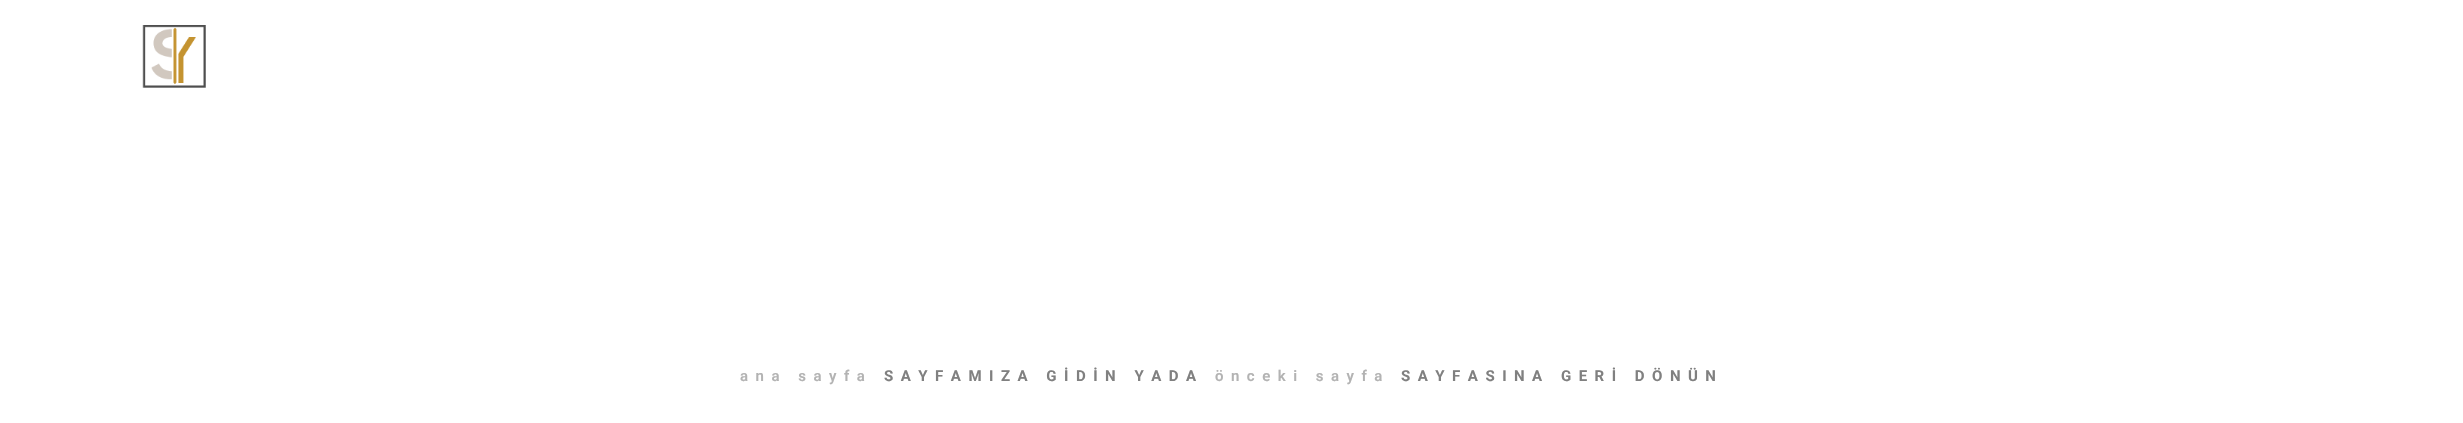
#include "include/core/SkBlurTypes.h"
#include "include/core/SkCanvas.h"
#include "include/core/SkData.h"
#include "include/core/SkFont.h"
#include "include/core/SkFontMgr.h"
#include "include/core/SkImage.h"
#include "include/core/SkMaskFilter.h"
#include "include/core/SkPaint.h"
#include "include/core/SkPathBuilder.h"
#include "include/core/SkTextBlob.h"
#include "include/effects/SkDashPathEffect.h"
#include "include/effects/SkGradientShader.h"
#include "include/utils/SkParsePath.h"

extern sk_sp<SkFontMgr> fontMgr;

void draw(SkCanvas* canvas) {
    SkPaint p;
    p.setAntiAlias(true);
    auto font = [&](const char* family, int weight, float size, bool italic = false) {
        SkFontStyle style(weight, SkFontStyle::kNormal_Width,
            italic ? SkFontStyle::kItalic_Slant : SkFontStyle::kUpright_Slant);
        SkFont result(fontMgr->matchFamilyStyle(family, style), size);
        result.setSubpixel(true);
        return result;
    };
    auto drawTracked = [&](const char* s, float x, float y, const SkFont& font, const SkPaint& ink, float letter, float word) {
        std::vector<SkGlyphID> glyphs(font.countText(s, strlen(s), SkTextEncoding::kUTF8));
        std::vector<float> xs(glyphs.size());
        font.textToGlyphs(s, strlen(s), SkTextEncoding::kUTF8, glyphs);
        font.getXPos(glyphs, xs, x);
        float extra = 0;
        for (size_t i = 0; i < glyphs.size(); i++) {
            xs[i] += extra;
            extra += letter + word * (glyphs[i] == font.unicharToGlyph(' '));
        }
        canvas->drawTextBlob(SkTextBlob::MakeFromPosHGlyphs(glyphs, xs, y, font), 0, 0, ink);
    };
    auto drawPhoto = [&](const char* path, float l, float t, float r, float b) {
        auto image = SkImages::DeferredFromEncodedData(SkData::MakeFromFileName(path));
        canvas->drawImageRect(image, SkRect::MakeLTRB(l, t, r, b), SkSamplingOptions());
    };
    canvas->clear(0xFFFFFFFF);
    drawPhoto("media/1.png", 142, 25, 206, 88);
    auto font1 = font("Roboto", 600, 15);
    p.setColor(0xFFB3B3B3);
    drawTracked("ana sayfa", 740, 381, font1, p, 7.5f, 0);
    auto font2 = font("Roboto", 700, 15);
    p.setColor(0xFF808080);
    drawTracked("SAYFAMIZA GİDİN YADA", 884, 381, font2, p, 7.5f, 0);
    p.setColor(0xFFB3B3B3);
    drawTracked("önceki sayfa", 1215, 381, font1, p, 7.5f, 0);
    p.setColor(0xFF808080);
    drawTracked("SAYFASINA GERİ DÖNÜN", 1401, 381, font2, p, 7.5f, 0);
}
